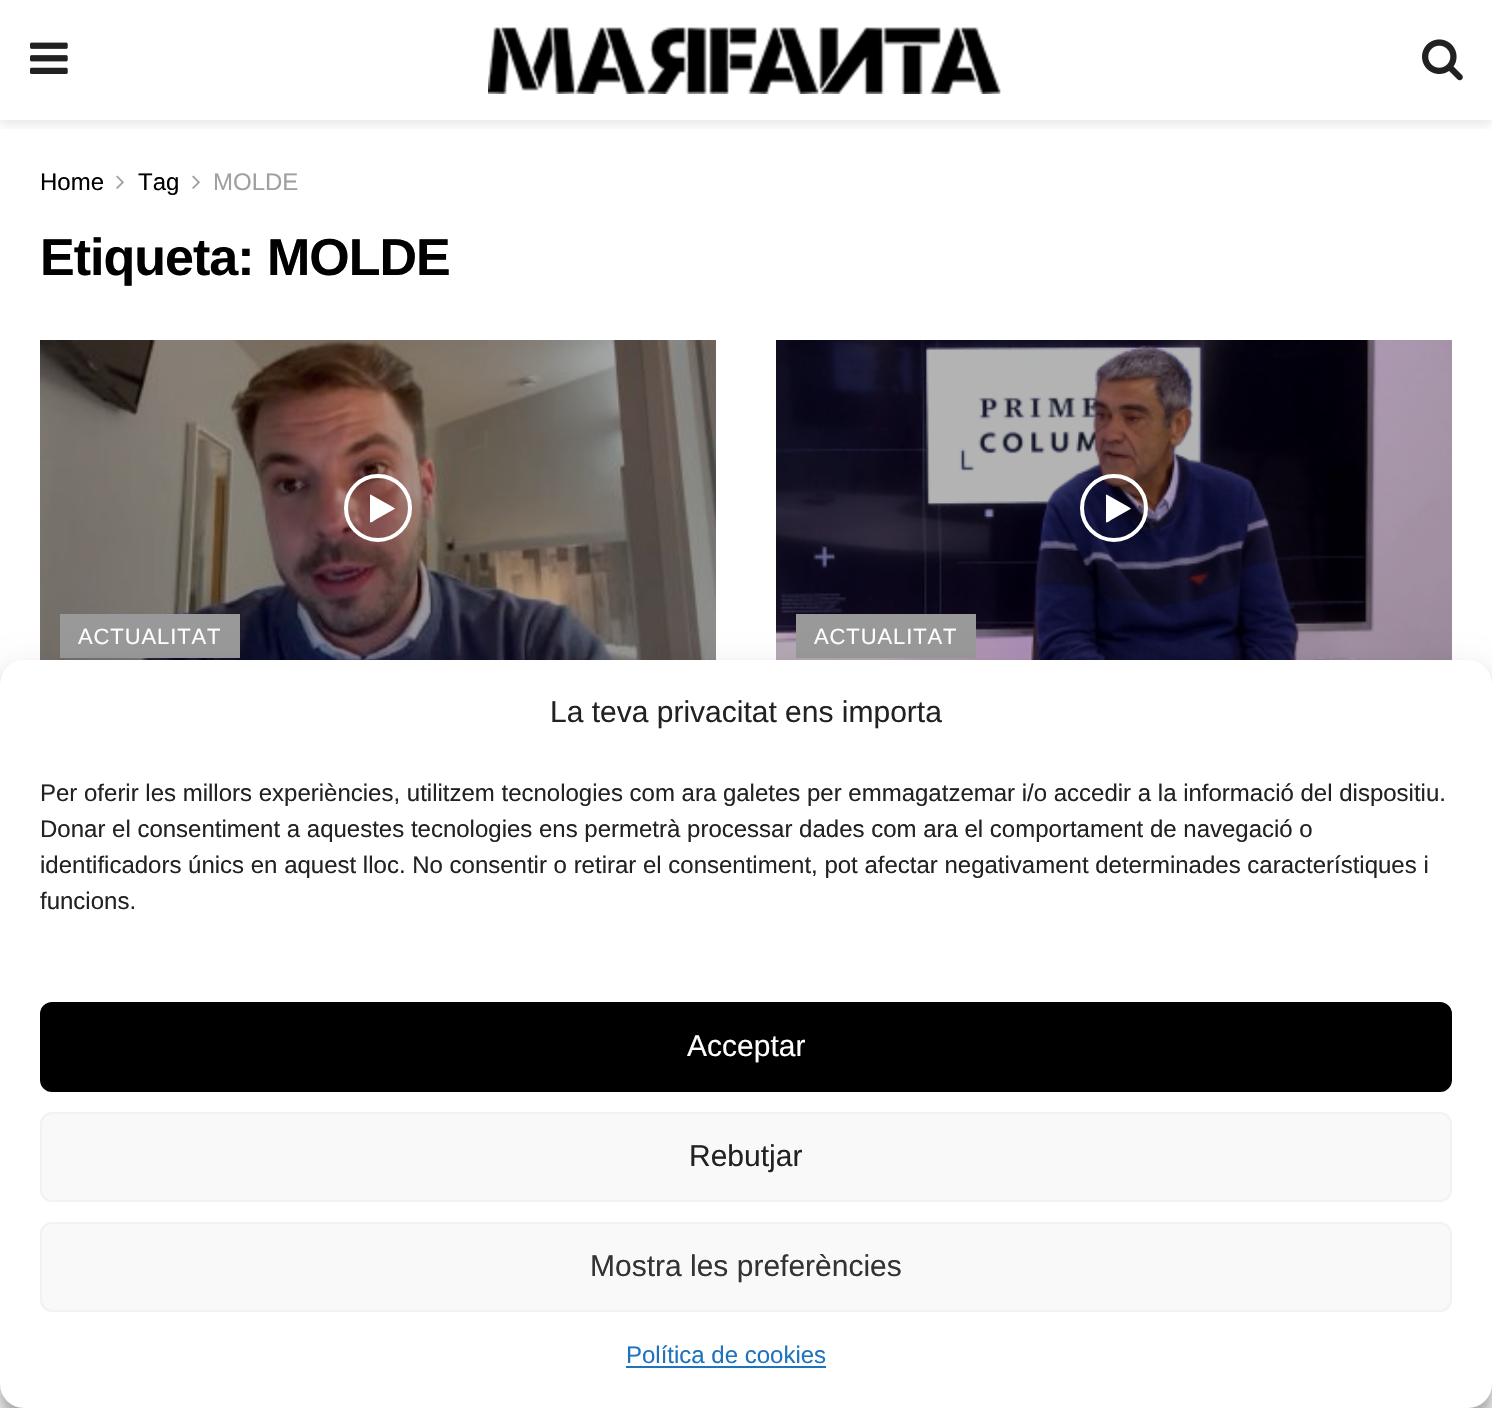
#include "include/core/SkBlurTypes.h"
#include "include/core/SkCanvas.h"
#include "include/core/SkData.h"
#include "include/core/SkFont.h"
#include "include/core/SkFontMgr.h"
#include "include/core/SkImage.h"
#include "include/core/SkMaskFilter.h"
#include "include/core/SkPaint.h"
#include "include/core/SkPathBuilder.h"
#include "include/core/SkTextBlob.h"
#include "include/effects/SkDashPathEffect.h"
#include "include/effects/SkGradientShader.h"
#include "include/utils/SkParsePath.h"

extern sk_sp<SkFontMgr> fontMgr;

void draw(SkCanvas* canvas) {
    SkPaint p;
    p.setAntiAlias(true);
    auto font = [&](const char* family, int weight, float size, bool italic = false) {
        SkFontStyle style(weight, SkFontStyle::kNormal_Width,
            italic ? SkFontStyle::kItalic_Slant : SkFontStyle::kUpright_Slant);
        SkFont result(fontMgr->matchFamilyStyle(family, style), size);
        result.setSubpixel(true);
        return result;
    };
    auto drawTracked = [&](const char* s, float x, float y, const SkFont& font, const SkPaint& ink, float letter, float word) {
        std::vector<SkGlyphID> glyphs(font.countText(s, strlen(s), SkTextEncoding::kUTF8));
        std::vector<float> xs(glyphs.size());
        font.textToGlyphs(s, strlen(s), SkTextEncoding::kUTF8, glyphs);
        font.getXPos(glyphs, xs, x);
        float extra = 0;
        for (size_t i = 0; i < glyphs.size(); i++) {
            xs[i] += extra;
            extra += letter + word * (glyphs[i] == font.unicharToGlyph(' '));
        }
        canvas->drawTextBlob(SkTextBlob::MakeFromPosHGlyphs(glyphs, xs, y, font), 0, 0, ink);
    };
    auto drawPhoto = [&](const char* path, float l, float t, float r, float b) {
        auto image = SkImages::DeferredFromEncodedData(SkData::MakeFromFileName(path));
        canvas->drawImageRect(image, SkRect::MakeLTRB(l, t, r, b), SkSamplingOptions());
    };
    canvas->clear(0xFFFFFFFF);
    canvas->save();
    canvas->clipRect(SkRect::MakeLTRB(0, 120, 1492, 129));
    p.setColor(0x1A000000);
    p.setMaskFilter(SkMaskFilter::MakeBlur(kNormal_SkBlurStyle, 6));
    canvas->drawRect(SkRect::MakeLTRB(0, 4, 1492, 124), p);
    p.setMaskFilter(nullptr);
    canvas->restore();
    drawPhoto("media/1.png", 30, 42, 68, 74);
    drawPhoto("media/2.png", 488, 27, 1001, 94);
    drawPhoto("media/3.png", 1422, 39, 1463, 81);
    auto font1 = font("Liberation Sans", 400, 24);
    p.setColor(0xFF000000);
    canvas->drawString("Home", 40, 190, font1, p);
    drawPhoto("media/4.png", 116, 175, 124, 189);
    canvas->drawString("Tag", 138, 190, font1, p);
    drawPhoto("media/4.png", 192, 175, 200, 189);
    p.setColor(0xFFA0A0A0);
    canvas->drawString("MOLDE", 213, 190, font1, p);
    auto font2 = font("Liberation Sans", 700, 52);
    p.setColor(0xFF000000);
    drawTracked("Etiqueta: MOLDE", 40, 275, font2, p, -1, 0);
    drawPhoto("media/5.png", 40, 340, 716, 660);
    p.setStyle(SkPaint::kStroke_Style);
    p.setStrokeWidth(4);
    p.setColor(0xFFFFFFFF);
    canvas->drawCircle(378, 508, 32, p);
    p.setStyle(SkPaint::kFill_Style);
    canvas->drawPath(SkPathBuilder().moveTo(394.5f, 509).lineTo(375, 520).cubicTo(374.5f, 520.5f, 371, 523.5f, 370, 522).lineTo(370, 495).lineTo(370.5f, 494.5f).lineTo(391, 506).lineTo(395, 508.5f).close().detach(), p);
    p.setColor(0xFF999999);
    canvas->drawRect(SkRect::MakeLTRB(60, 614, 240, 658), p);
    auto font3 = font("Liberation Sans", 400, 22);
    p.setColor(0xFFFFFFFF);
    drawTracked("ACTUALITAT", 78, 644, font3, p, 0.9f, 0);
    drawPhoto("media/6.png", 776, 340, 1452, 660);
    p.setStyle(SkPaint::kStroke_Style);
    canvas->drawCircle(1114, 508, 32, p);
    p.setStyle(SkPaint::kFill_Style);
    canvas->drawPath(SkPathBuilder().moveTo(1130.5f, 509).lineTo(1111, 520).cubicTo(1110.5f, 520.5f, 1107, 523.5f, 1106, 522).lineTo(1106, 495).lineTo(1106.5f, 494.5f).lineTo(1127, 506).lineTo(1131, 508.5f).close().detach(), p);
    p.setColor(0xFF999999);
    canvas->drawRect(SkRect::MakeLTRB(796, 614, 976, 658), p);
    p.setColor(0xFFFFFFFF);
    drawTracked("ACTUALITAT", 814, 644, font3, p, 0.9f, 0);
    p.setColor(0x3B000000);
    p.setMaskFilter(SkMaskFilter::MakeBlur(kNormal_SkBlurStyle, 6));
    canvas->drawRoundRect(SkRect::MakeLTRB(0, 672, 1492, 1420), 24, 24, p);
    p.setMaskFilter(nullptr);
    p.setColor(0x30000000);
    p.setMaskFilter(SkMaskFilter::MakeBlur(kNormal_SkBlurStyle, 20));
    canvas->drawRoundRect(SkRect::MakeLTRB(0, 680, 1492, 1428), 24, 24, p);
    p.setMaskFilter(nullptr);
    p.setColor(0xFFFFFFFF);
    canvas->drawRoundRect(SkRect::MakeLTRB(0, 660, 1492, 1408), 24, 24, p);
    auto font4 = font("Liberation Sans", 400, 30);
    p.setColor(0xFF222222);
    canvas->drawString("La teva privacitat ens importa", 550, 722, font4, p);
    {
        const struct { const char* s; float x, y; } items[] = {
            {"Per oferir les millors experiències, utilitzem tecnologies com ara galetes per emmagatzemar i/o accedir a la informació del dispositiu.", 40, 801},
            {"Donar el consentiment a aquestes tecnologies ens permetrà processar dades com ara el comportament de navegació o", 40, 837},
            {"identificadors únics en aquest lloc. No consentir o retirar el consentiment, pot afectar negativament determinades característiques i", 40, 873},
            {"funcions.", 40, 909},
        };
        for (auto [s, x, y] : items) {
            canvas->drawString(s, x, y, font1, p);
        }
    }
    p.setColor(0xFF000000);
    canvas->drawRoundRect(SkRect::MakeLTRB(41, 1003, 1451, 1091), 11, 11, p);
    p.setStyle(SkPaint::kStroke_Style);
    p.setStrokeWidth(2);
    canvas->drawRoundRect(SkRect::MakeLTRB(41, 1003, 1451, 1091), 11, 11, p);
    p.setStyle(SkPaint::kFill_Style);
    p.setColor(0xFFFFFFFF);
    canvas->drawString("Acceptar", 687, 1056, font4, p);
    p.setColor(0xFFF9F9F9);
    canvas->drawRoundRect(SkRect::MakeLTRB(41, 1113, 1451, 1201), 11, 11, p);
    p.setStyle(SkPaint::kStroke_Style);
    p.setColor(0xFFF2F2F2);
    canvas->drawRoundRect(SkRect::MakeLTRB(41, 1113, 1451, 1201), 11, 11, p);
    p.setStyle(SkPaint::kFill_Style);
    p.setColor(0xFF222222);
    canvas->drawString("Rebutjar", 689, 1166, font4, p);
    p.setColor(0xFFF9F9F9);
    canvas->drawRoundRect(SkRect::MakeLTRB(41, 1223, 1451, 1311), 11, 11, p);
    p.setStyle(SkPaint::kStroke_Style);
    p.setColor(0xFFF2F2F2);
    canvas->drawRoundRect(SkRect::MakeLTRB(41, 1223, 1451, 1311), 11, 11, p);
    p.setStyle(SkPaint::kFill_Style);
    p.setColor(0xFF333333);
    canvas->drawString("Mostra les preferències", 590, 1276, font4, p);
    p.setColor(0xFF1E73BE);
    canvas->drawString("Política de cookies", 626, 1363, font1, p);
    canvas->drawRect(SkRect::MakeLTRB(626, 1366, 826, 1368), p);
}
